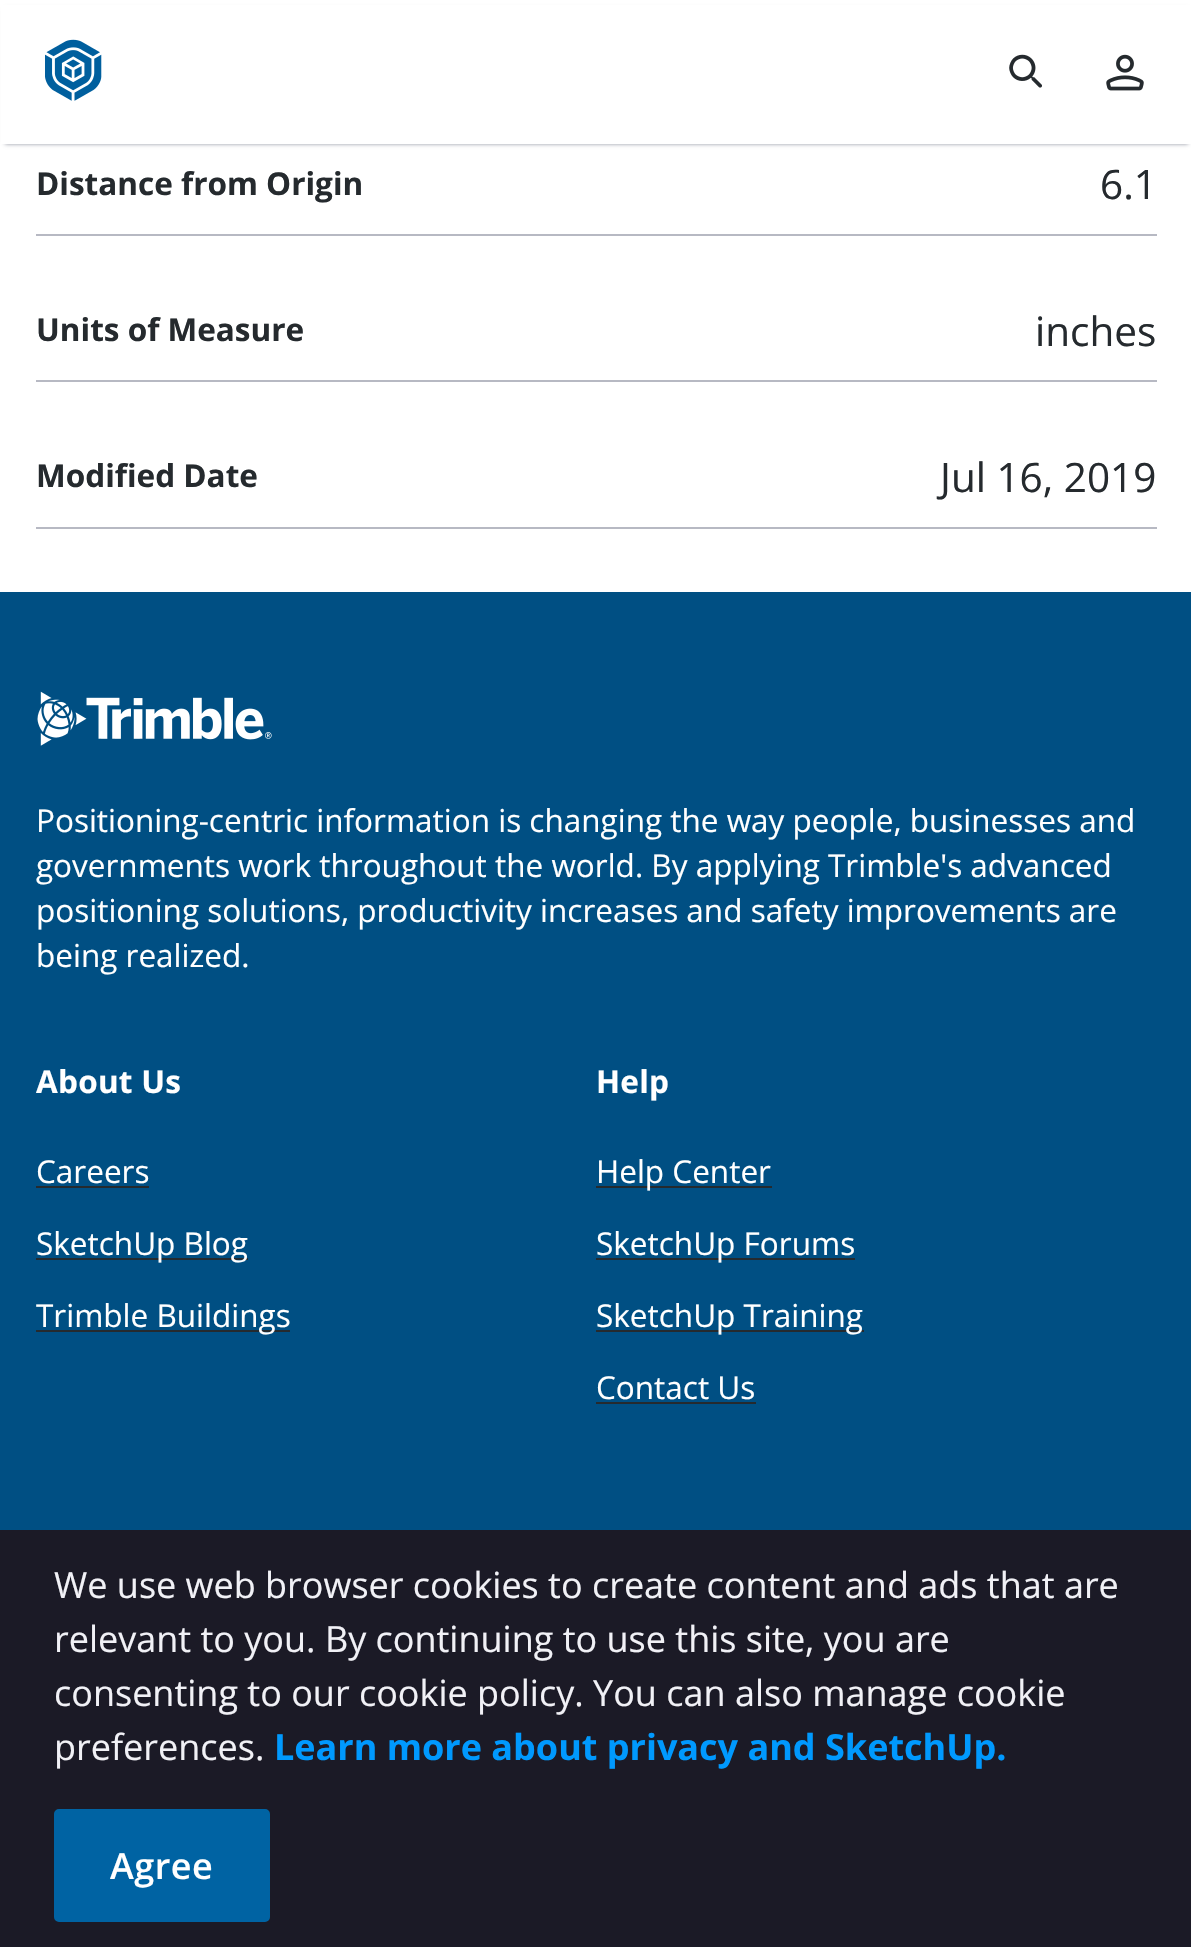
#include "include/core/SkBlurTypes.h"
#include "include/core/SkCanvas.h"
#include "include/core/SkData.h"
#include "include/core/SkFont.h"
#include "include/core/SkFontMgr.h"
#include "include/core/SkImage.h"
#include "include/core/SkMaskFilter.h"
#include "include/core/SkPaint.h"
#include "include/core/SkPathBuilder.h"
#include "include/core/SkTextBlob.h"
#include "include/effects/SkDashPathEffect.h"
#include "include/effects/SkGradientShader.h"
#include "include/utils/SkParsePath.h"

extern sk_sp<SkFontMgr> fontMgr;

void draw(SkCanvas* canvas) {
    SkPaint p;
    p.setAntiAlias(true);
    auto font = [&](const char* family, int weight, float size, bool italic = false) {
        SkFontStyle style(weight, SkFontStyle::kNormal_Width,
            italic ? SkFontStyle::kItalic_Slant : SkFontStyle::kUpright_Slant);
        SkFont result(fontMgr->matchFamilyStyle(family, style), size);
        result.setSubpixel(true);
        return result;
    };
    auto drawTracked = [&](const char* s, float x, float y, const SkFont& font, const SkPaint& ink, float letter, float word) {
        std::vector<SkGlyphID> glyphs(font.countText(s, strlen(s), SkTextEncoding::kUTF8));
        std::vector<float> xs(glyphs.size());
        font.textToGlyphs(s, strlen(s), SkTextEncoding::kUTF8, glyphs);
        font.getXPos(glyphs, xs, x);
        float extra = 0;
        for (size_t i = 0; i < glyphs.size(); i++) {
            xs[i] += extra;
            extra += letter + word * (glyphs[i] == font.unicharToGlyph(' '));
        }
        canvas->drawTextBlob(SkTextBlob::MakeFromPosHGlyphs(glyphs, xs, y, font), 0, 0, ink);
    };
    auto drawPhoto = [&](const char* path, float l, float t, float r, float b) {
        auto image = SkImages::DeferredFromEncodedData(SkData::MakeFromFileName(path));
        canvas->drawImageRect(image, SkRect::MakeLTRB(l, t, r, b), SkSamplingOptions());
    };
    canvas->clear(0xFFFFFFFF);
    p.setColor(0xFF90939F);
    p.setMaskFilter(SkMaskFilter::MakeBlur(kNormal_SkBlurStyle, 2));
    canvas->drawRect(SkRect::MakeLTRB(5, 9, 1188, 144), p);
    p.setMaskFilter(nullptr);
    p.setColor(0xFFFFFFFF);
    canvas->drawRect(SkRect::MakeLTRB(1, 5, 1191, 144), p);
    drawPhoto("media/1.png", 45, 39, 102, 101);
    drawPhoto("media/2.png", 1009, 54, 1042, 88);
    drawPhoto("media/3.png", 1106, 54, 1144, 91);
    p.setColor(0xFFB7B9C3);
    canvas->drawRect(SkRect::MakeLTRB(36, 234, 1157, 236), p);
    auto font1 = font("Open Sans", 700, 31.5f);
    p.setColor(0xFF252A2E);
    canvas->drawString("Distance from Origin", 36, 195, font1, p);
    auto font2 = font("Open Sans", 400, 40.5f);
    canvas->drawString("6.1", 1100, 199, font2, p);
    p.setColor(0xFFB7B9C3);
    canvas->drawRect(SkRect::MakeLTRB(36, 380, 1157, 382), p);
    p.setColor(0xFF252A2E);
    canvas->drawString("Units of Measure", 36, 341, font1, p);
    canvas->drawString("inches", 1035, 346, font2, p);
    p.setColor(0xFFB7B9C3);
    canvas->drawRect(SkRect::MakeLTRB(36, 527, 1157, 529), p);
    p.setColor(0xFF252A2E);
    canvas->drawString("Modified Date", 36, 487, font1, p);
    canvas->drawString("Jul 16, 2019", 940, 492, font2, p);
    p.setColor(0xFF004F83);
    canvas->drawRect(SkRect::MakeLTRB(0, 592, 1191, 1530), p);
    drawPhoto("media/4.png", 37, 691, 272, 746);
    auto font3 = font("Open Sans", 400, 31.5f);
    p.setColor(0xFFFFFFFF);
    {
        const struct { const char* s; float x, y; } items[] = {
            {"Positioning-centric information is changing the way people, businesses and", 36, 832},
            {"governments work throughout the world. By applying Trimble's advanced", 36, 877},
            {"positioning solutions, productivity increases and safety improvements are", 36, 922},
            {"being realized.", 36, 967},
        };
        for (auto [s, x, y] : items) {
            canvas->drawString(s, x, y, font3, p);
        }
    }
    drawTracked("About Us", 36, 1093, font1, p, 0.25f, 0);
    canvas->drawString("Careers", 36, 1183, font3, p);
    p.setColor(0xFF252A2E);
    canvas->drawRect(SkRect::MakeLTRB(36, 1186, 149, 1188), p);
    canvas->drawRect(SkRect::MakeLTRB(36, 1258, 248, 1260), p);
    p.setColor(0xFFFFFFFF);
    canvas->drawString("SketchUp Blog", 36, 1255, font3, p);
    p.setColor(0xFF252A2E);
    canvas->drawRect(SkRect::MakeLTRB(36, 1330, 290, 1332), p);
    p.setColor(0xFFFFFFFF);
    canvas->drawString("Trimble Buildings", 36, 1327, font3, p);
    drawTracked("Help", 596, 1093, font1, p, 0.25f, 0);
    p.setColor(0xFF252A2E);
    canvas->drawRect(SkRect::MakeLTRB(596, 1186, 772, 1188), p);
    p.setColor(0xFFFFFFFF);
    canvas->drawString("Help Center", 596, 1183, font3, p);
    p.setColor(0xFF252A2E);
    canvas->drawRect(SkRect::MakeLTRB(596, 1258, 855, 1260), p);
    p.setColor(0xFFFFFFFF);
    canvas->drawString("SketchUp Forums", 596, 1255, font3, p);
    p.setColor(0xFF252A2E);
    canvas->drawRect(SkRect::MakeLTRB(596, 1330, 864, 1332), p);
    p.setColor(0xFFFFFFFF);
    canvas->drawString("SketchUp Training", 596, 1327, font3, p);
    canvas->drawString("Contact Us", 596, 1399, font3, p);
    p.setColor(0xFF252A2E);
    canvas->drawRect(SkRect::MakeLTRB(596, 1402, 756, 1404), p);
    p.setColor(0xFF1B1A26);
    canvas->drawRect(SkRect::MakeLTRB(0, 1530, 1191, 1947), p);
    auto font4 = font("Open Sans", 400, 36);
    p.setColor(0xFFF1F1F6);
    {
        const struct { const char* s; float x, y; } items[] = {
            {"We use web browser cookies to create content and ads that are", 54, 1598},
            {"relevant to you. By continuing to use this site, you are", 54, 1652},
            {"consenting to our cookie policy. You can also manage cookie", 54, 1706},
            {"preferences.", 54, 1760},
        };
        for (auto [s, x, y] : items) {
            canvas->drawString(s, x, y, font4, p);
        }
    }
    auto font5 = font("Open Sans", 700, 36);
    p.setColor(0xFF0099FE);
    canvas->drawString("Learn more about privacy and SketchUp.", 274, 1760, font5, p);
    p.setColor(0xFF0063A3);
    canvas->drawRoundRect(SkRect::MakeLTRB(55, 1810, 269, 1921), 4, 4, p);
    p.setStyle(SkPaint::kStroke_Style);
    p.setStrokeWidth(2);
    canvas->drawRoundRect(SkRect::MakeLTRB(55, 1810, 269, 1921), 4, 4, p);
    auto font6 = font("Open Sans", 600, 36);
    p.setStyle(SkPaint::kFill_Style);
    p.setColor(0xFFFFFFFF);
    drawTracked("Agree", 110, 1879, font6, p, 0.5f, 0);
}
